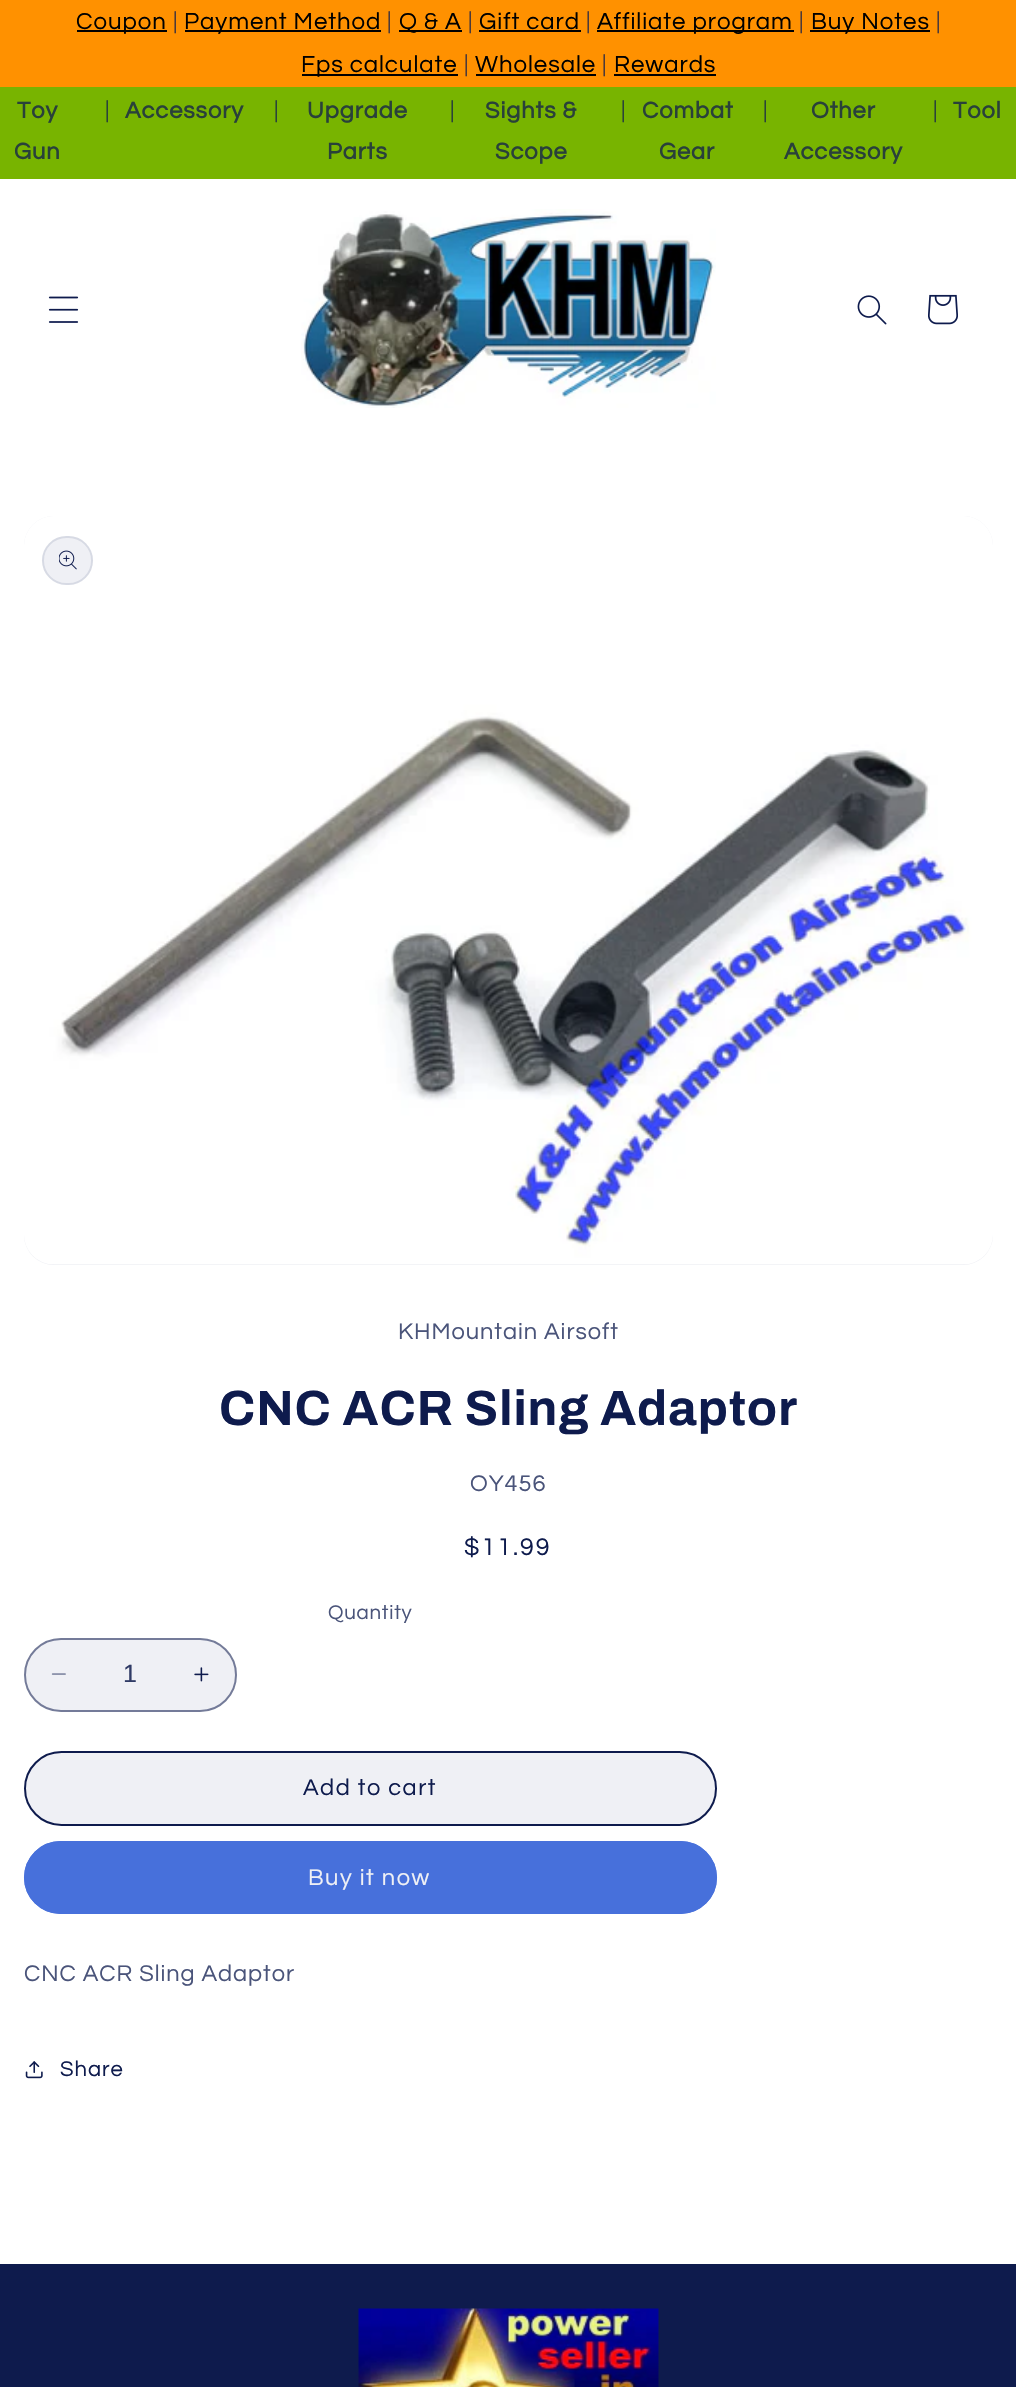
#include "include/core/SkBlurTypes.h"
#include "include/core/SkCanvas.h"
#include "include/core/SkData.h"
#include "include/core/SkFont.h"
#include "include/core/SkFontMgr.h"
#include "include/core/SkImage.h"
#include "include/core/SkMaskFilter.h"
#include "include/core/SkPaint.h"
#include "include/core/SkPathBuilder.h"
#include "include/core/SkTextBlob.h"
#include "include/effects/SkDashPathEffect.h"
#include "include/effects/SkGradientShader.h"
#include "include/utils/SkParsePath.h"

extern sk_sp<SkFontMgr> fontMgr;

void draw(SkCanvas* canvas) {
    SkPaint p;
    p.setAntiAlias(true);
    auto font = [&](const char* family, int weight, float size, bool italic = false) {
        SkFontStyle style(weight, SkFontStyle::kNormal_Width,
            italic ? SkFontStyle::kItalic_Slant : SkFontStyle::kUpright_Slant);
        SkFont result(fontMgr->matchFamilyStyle(family, style), size);
        result.setSubpixel(true);
        return result;
    };
    auto drawTracked = [&](const char* s, float x, float y, const SkFont& font, const SkPaint& ink, float letter, float word) {
        std::vector<SkGlyphID> glyphs(font.countText(s, strlen(s), SkTextEncoding::kUTF8));
        std::vector<float> xs(glyphs.size());
        font.textToGlyphs(s, strlen(s), SkTextEncoding::kUTF8, glyphs);
        font.getXPos(glyphs, xs, x);
        float extra = 0;
        for (size_t i = 0; i < glyphs.size(); i++) {
            xs[i] += extra;
            extra += letter + word * (glyphs[i] == font.unicharToGlyph(' '));
        }
        canvas->drawTextBlob(SkTextBlob::MakeFromPosHGlyphs(glyphs, xs, y, font), 0, 0, ink);
    };
    auto drawPhoto = [&](const char* path, float l, float t, float r, float b) {
        auto image = SkImages::DeferredFromEncodedData(SkData::MakeFromFileName(path));
        canvas->drawImageRect(image, SkRect::MakeLTRB(l, t, r, b), SkSamplingOptions());
    };
    canvas->clear(0xFFFFFFFF);
    p.setColor(0xFFFF9100);
    canvas->drawRect(SkRect::MakeLTRB(0, 0, 1016, 87), p);
    p.setColor(0xFF000000);
    canvas->drawRect(SkRect::MakeLTRB(77, 30, 167, 32), p);
    auto font1 = font("Questrial", 400, 24);
    drawTracked("Coupon", 76, 29, font1, p, 0.95f, 0);
    auto font2 = font("Questrial", 400, 23.6f);
    p.setColor(0xFF4A393A);
    drawTracked("|", 173, 29, font2, p, 0.95f, 0);
    p.setColor(0xFF000000);
    canvas->drawRect(SkRect::MakeLTRB(185, 30, 381, 32), p);
    drawTracked("Payment Method", 184, 29, font1, p, 0.95f, 0);
    p.setColor(0xFF4A393A);
    drawTracked("|", 387, 29, font2, p, 0.95f, 0);
    p.setColor(0xFF000000);
    canvas->drawRect(SkRect::MakeLTRB(399, 30, 462, 32), p);
    drawTracked("Q & A", 399, 29, font1, p, 0.95f, 0);
    p.setColor(0xFF4A393A);
    drawTracked("|", 468, 29, font2, p, 0.95f, 0);
    p.setColor(0xFF000000);
    drawTracked("Gift card", 479, 29, font1, p, 0.95f, 0);
    canvas->drawRect(SkRect::MakeLTRB(479, 30, 581, 32), p);
    p.setColor(0xFF4A393A);
    drawTracked("|", 586, 29, font2, p, 0.95f, 0);
    p.setColor(0xFF000000);
    canvas->drawRect(SkRect::MakeLTRB(597, 30, 794, 32), p);
    drawTracked("Affiliate program", 597, 29, font1, p, 0.95f, 0);
    p.setColor(0xFF4A393A);
    drawTracked("|", 799, 29, font2, p, 0.95f, 0);
    p.setColor(0xFF000000);
    canvas->drawRect(SkRect::MakeLTRB(810, 30, 930, 32), p);
    drawTracked("Buy Notes", 811, 29, font1, p, 0.95f, 0);
    p.setColor(0xFF4A393A);
    drawTracked("|", 936, 29, font2, p, 0.95f, 0);
    p.setColor(0xFF000000);
    canvas->drawRect(SkRect::MakeLTRB(302, 74, 458, 76), p);
    drawTracked("Fps calculate", 301, 72, font1, p, 0.95f, 0);
    p.setColor(0xFF4A393A);
    drawTracked("|", 464, 72, font2, p, 0.95f, 0);
    p.setColor(0xFF000000);
    drawTracked("Wholesale", 475, 72, font1, p, 0.95f, 0);
    canvas->drawRect(SkRect::MakeLTRB(476, 74, 596, 76), p);
    p.setColor(0xFF4A393A);
    drawTracked("|", 602, 72, font2, p, 0.95f, 0);
    p.setColor(0xFF000000);
    drawTracked("Rewards", 614, 72, font1, p, 0.95f, 0);
    canvas->drawRect(SkRect::MakeLTRB(614, 74, 716, 76), p);
    p.setColor(0xFF78B400);
    canvas->drawRect(SkRect::MakeLTRB(0, 87, 1016, 179), p);
    auto font3 = font("Questrial", 700, 23.6f);
    p.setColor(0xFF29413A);
    drawTracked("Toy", 17, 118, font3, p, 0.95f, 0);
    drawTracked("Gun", 14, 159, font3, p, 0.95f, 0);
    drawTracked("|", 105, 118, font2, p, 0.95f, 0);
    drawTracked("Accessory", 125, 118, font3, p, 0.95f, 0);
    drawTracked("|", 274, 118, font2, p, 0.95f, 0);
    drawTracked("Upgrade", 307, 118, font3, p, 0.95f, 0);
    drawTracked("Parts", 327, 159, font3, p, 0.95f, 0);
    drawTracked("|", 450, 118, font2, p, 0.95f, 0);
    drawTracked("Sights &", 485, 118, font3, p, 0.95f, 0);
    drawTracked("Scope", 495, 159, font3, p, 0.95f, 0);
    drawTracked("|", 621, 118, font2, p, 0.95f, 0);
    drawTracked("Combat", 642, 118, font3, p, 0.95f, 0);
    drawTracked("Gear", 659, 159, font3, p, 0.95f, 0);
    drawTracked("|", 763, 118, font2, p, 0.95f, 0);
    drawTracked("Other", 811, 118, font3, p, 0.95f, 0);
    drawTracked("Accessory", 784, 159, font3, p, 0.95f, 0);
    drawTracked("|", 933, 118, font2, p, 0.95f, 0);
    drawTracked("Tool", 953, 118, font3, p, 0.95f, 0);
    drawPhoto("media/1.png", 48, 296, 79, 323);
    drawPhoto("media/2.png", 301, 209, 716, 408);
    drawPhoto("media/3.png", 857, 295, 887, 325);
    drawPhoto("media/4.png", 928, 294, 958, 325);
    p.setColor(0xFFEFF0F5);
    canvas->drawRoundRect(SkRect::MakeLTRB(24, 516, 993, 1265), 30, 30, p);
    drawPhoto("media/5.png", 24, 516, 993, 1265);
    canvas->drawRoundRect(SkRect::MakeLTRB(42, 536, 93, 585), 24.5f, 24.5f, p);
    p.setStyle(SkPaint::kStroke_Style);
    p.setStrokeWidth(2);
    p.setColor(0x1A0E1B4D);
    canvas->drawRoundRect(SkRect::MakeLTRB(43, 537, 92, 584), 23.5f, 23.5f, p);
    drawPhoto("media/6.png", 59, 550, 77, 570);
    p.setStyle(SkPaint::kFill_Style);
    p.setColor(0xFF4A547A);
    drawTracked("KHMountain Airsoft", 398, 1339, font2, p, 0.95f, 0);
    auto font4 = font("Archivo", 700, 49.5f);
    p.setColor(0xFF0E1B4D);
    drawTracked("CNC ACR Sling Adaptor", 219, 1425, font4, p, 1, 0);
    p.setColor(0xFF4A547A);
    drawTracked("OY456", 470, 1491, font2, p, 0.95f, 0);
    auto font5 = font("Questrial", 400, 25);
    p.setColor(0xFF0E1B4D);
    drawTracked("$11.99", 464, 1555, font5, p, 2, 0);
    auto font6 = font("Questrial", 400, 20.5f);
    p.setColor(0xFF4A547A);
    drawTracked("Quantity", 328, 1619, font6, p, 0.75f, 0);
    p.setColor(0xFFEFF0F5);
    canvas->drawRoundRect(SkRect::MakeLTRB(24, 1638, 237, 1712), 37, 37, p);
    drawPhoto("media/7.png", 51, 1673, 66, 1675);
    drawPhoto("media/8.png", 194, 1667, 209, 1682);
    p.setStyle(SkPaint::kStroke_Style);
    p.setColor(0x8C0E1B4D);
    canvas->drawRoundRect(SkRect::MakeLTRB(25, 1639, 236, 1711), 36, 36, p);
    auto font7 = font("Liberation Sans", 400, 25);
    p.setStyle(SkPaint::kFill_Style);
    p.setColor(0xFF303B66);
    canvas->drawString("1", 123, 1682, font7, p);
    p.setColor(0xFFEFF0F5);
    canvas->drawRoundRect(SkRect::MakeLTRB(24, 1751, 717, 1826), 37.5f, 37.5f, p);
    p.setStyle(SkPaint::kStroke_Style);
    canvas->drawRoundRect(SkRect::MakeLTRB(25, 1752, 716, 1825), 36.5f, 36.5f, p);
    p.setColor(0xFF0E1B4D);
    canvas->drawRoundRect(SkRect::MakeLTRB(25, 1752, 716, 1825), 36.5f, 36.5f, p);
    p.setStyle(SkPaint::kFill_Style);
    drawTracked("Add to cart", 303, 1795, font2, p, 1.5f, 0);
    p.setColor(0xFF4770DB);
    canvas->drawRoundRect(SkRect::MakeLTRB(24, 1841, 717, 1914), 36.5f, 36.5f, p);
    p.setStyle(SkPaint::kStroke_Style);
    canvas->drawRoundRect(SkRect::MakeLTRB(25, 1842, 716, 1913), 35.5f, 35.5f, p);
    p.setStyle(SkPaint::kFill_Style);
    p.setColor(0xFFEFF0F5);
    drawTracked("Buy it now", 308, 1885, font2, p, 1.5f, 0);
    p.setColor(0xFF4A547A);
    drawTracked("CNC ACR Sling Adaptor", 24, 1981, font2, p, 0.95f, 0);
    drawPhoto("media/9.png", 25, 2061, 43, 2079);
    auto font8 = font("Questrial", 400, 22);
    p.setColor(0xFF0E1B4D);
    drawTracked("Share", 60, 2076, font8, p, 0.95f, 0);
    canvas->drawRect(SkRect::MakeLTRB(0, 2264, 1016, 2387), p);
    drawPhoto("media/10.png", 358, 2308, 659, 2387);
}
